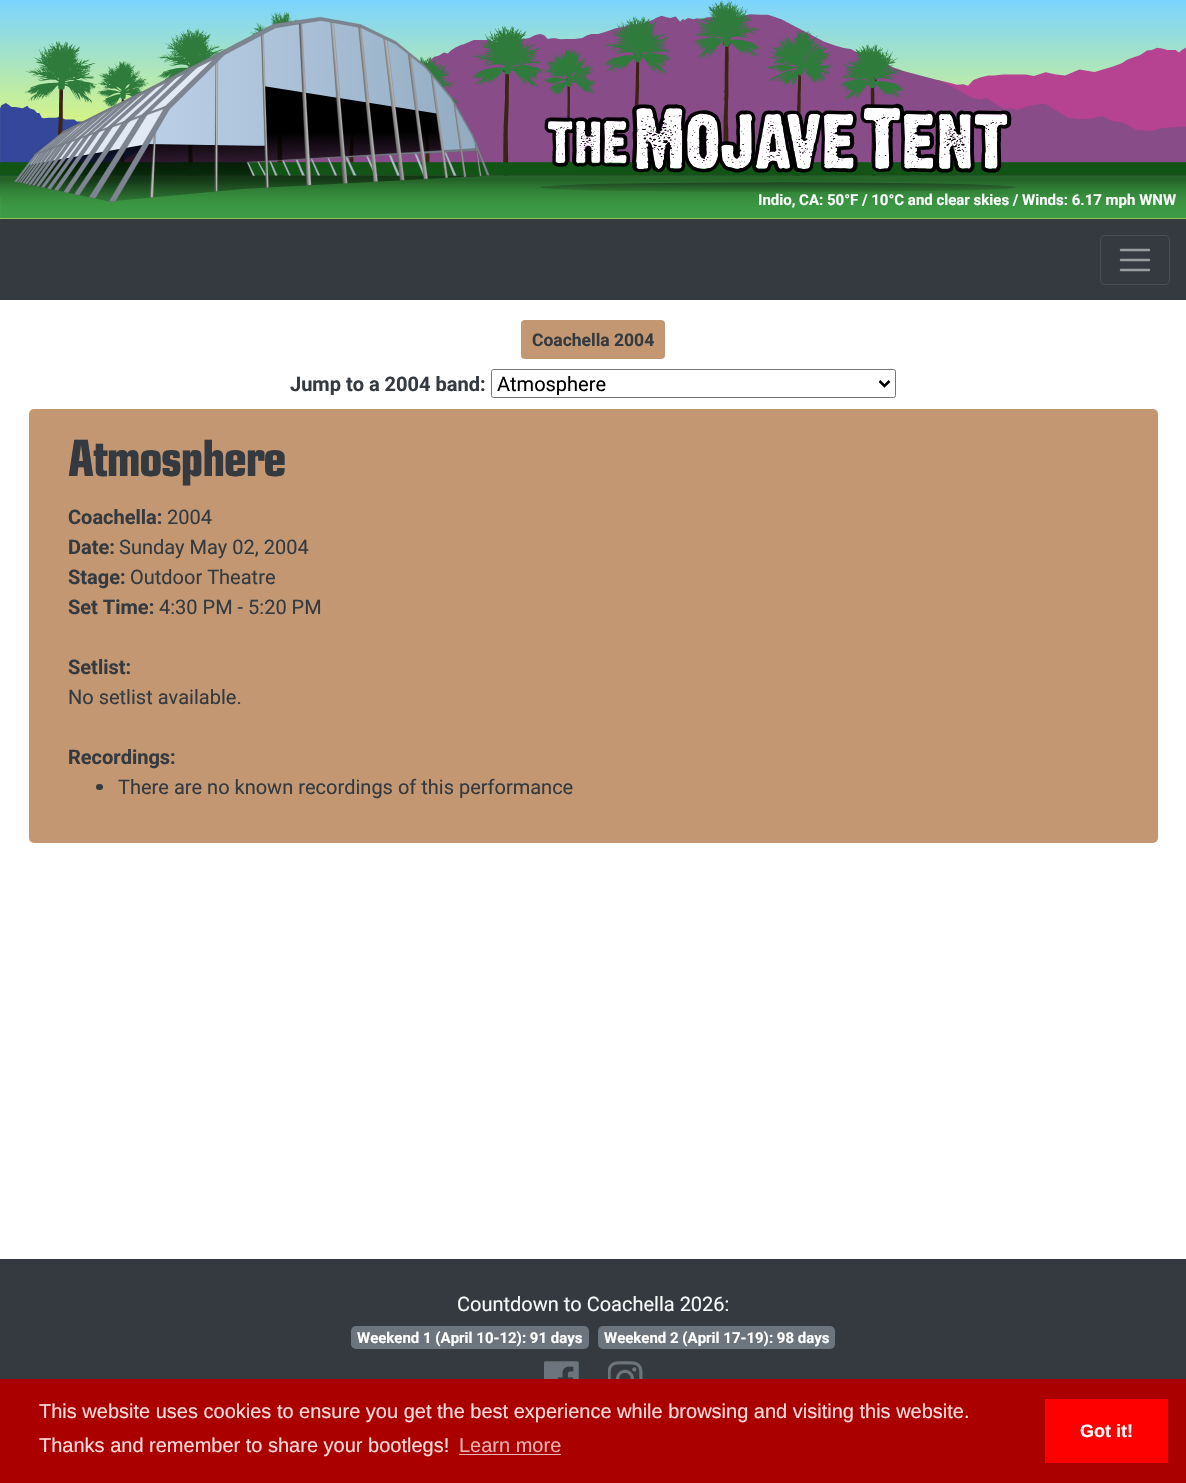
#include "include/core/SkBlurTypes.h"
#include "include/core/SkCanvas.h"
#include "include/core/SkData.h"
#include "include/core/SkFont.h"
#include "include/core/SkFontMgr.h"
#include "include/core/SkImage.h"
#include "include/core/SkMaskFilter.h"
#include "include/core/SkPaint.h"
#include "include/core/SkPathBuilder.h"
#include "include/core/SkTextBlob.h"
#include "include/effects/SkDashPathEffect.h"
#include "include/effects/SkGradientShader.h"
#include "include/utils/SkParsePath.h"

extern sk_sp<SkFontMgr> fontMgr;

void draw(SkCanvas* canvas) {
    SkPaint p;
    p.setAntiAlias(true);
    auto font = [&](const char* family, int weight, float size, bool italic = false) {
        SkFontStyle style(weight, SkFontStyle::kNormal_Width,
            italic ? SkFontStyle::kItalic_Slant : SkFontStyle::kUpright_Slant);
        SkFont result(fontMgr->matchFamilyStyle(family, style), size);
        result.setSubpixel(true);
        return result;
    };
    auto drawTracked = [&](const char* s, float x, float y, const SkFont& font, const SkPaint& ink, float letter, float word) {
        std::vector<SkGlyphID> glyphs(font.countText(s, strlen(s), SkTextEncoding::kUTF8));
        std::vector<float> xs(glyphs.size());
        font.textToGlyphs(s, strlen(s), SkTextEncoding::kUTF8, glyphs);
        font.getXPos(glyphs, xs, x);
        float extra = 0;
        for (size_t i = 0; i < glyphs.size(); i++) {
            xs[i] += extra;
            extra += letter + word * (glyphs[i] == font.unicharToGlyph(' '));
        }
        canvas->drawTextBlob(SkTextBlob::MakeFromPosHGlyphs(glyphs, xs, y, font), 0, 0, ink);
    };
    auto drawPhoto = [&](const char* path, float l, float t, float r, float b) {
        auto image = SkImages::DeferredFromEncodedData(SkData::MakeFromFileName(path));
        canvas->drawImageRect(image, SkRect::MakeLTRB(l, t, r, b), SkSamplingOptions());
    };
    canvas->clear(0xFFFFFFFF);
    {
        const SkColor colors[] = {0xFF7BD4FF, 0xFFF4FF5C};
        const float stops[] = {0, 0.75f};
        const SkPoint ends[] = {{593, 0}, {593, 219}};
        p.setShader(SkGradientShader::MakeLinear(ends, colors, stops, 2, SkTileMode::kClamp));
        p.setAlpha(255);
    }
    canvas->drawRect(SkRect::MakeLTRB(0, 0, 1186, 219), p);
    drawPhoto("media/1.png", 0, 0, 1186, 219);
    auto font1 = font("Roboto", 700, 15);
    p.setShader(nullptr);
    p.setColor(0xFFF8F9FA);
    canvas->drawString("Indio, CA: 50°F / 10°C and clear skies / Winds: 6.17 mph WNW", 758, 205, font1, p);
    p.setColor(0xFF343A40);
    canvas->drawRect(SkRect::MakeLTRB(0, 219, 1186, 300), p);
    p.setStyle(SkPaint::kStroke_Style);
    p.setStrokeWidth(1);
    p.setColor(0xFF484E53);
    canvas->drawRoundRect(SkRect::MakeLTRB(1100.5f, 235.5f, 1169.5f, 284.5f), 4.5f, 4.5f, p);
    p.setStrokeWidth(2.5f);
    p.setStrokeCap(SkPaint::kRound_Cap);
    p.setColor(0xFF9A9DA0);
    canvas->drawPath(SkPathBuilder().moveTo(1121, 250).lineTo(1149, 250).moveTo(1121, 260).lineTo(1149, 260).moveTo(1121, 270).lineTo(1149, 270).detach(), p);
    p.setStyle(SkPaint::kFill_Style);
    p.setColor(0xFFC29771);
    canvas->drawRoundRect(SkRect::MakeLTRB(521, 320, 665, 359), 4, 4, p);
    auto font2 = font("Roboto", 700, 17.5f);
    p.setColor(0xFF343A40);
    canvas->drawString("Coachella 2004", 532, 346, font2, p);
    auto font3 = font("Roboto", 700, 20);
    canvas->drawString("Jump to a 2004 band:", 290, 391, font3, p);
    p.setStyle(SkPaint::kStroke_Style);
    p.setStrokeWidth(1);
    p.setStrokeCap(SkPaint::kButt_Cap);
    p.setColor(0xFF767676);
    canvas->drawRoundRect(SkRect::MakeLTRB(491.5f, 369.5f, 895.5f, 397.5f), 2, 2, p);
    p.setStrokeWidth(2.5f);
    p.setColor(0xFF000000);
    canvas->drawPath(SkPathBuilder().moveTo(879.5f, 381).lineTo(884.5f, 386).lineTo(889.5f, 381).detach(), p);
    auto font4 = font("Roboto", 400, 20);
    p.setStyle(SkPaint::kFill_Style);
    canvas->drawString("Atmosphere", 497, 391, font4, p);
    p.setColor(0xFFC29771);
    canvas->drawRoundRect(SkRect::MakeLTRB(29, 409, 1158, 843), 5, 5, p);
    auto font5 = font("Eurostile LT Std", 700, 50);
    p.setColor(0xFF343A40);
    drawTracked("Atmosphere", 68, 476, font5, p, -1.6f, 0);
    canvas->drawString("Coachella:", 68, 524, font3, p);
    canvas->drawString("2004", 167, 524, font4, p);
    canvas->drawString("Date:", 68, 554, font3, p);
    canvas->drawString("Sunday May 02, 2004", 119, 554, font4, p);
    canvas->drawString("Stage:", 68, 584, font3, p);
    canvas->drawString("Outdoor Theatre", 130, 584, font4, p);
    canvas->drawString("Set Time:", 68, 614, font3, p);
    canvas->drawString("4:30 PM - 5:20 PM", 159, 614, font4, p);
    canvas->drawString("Setlist:", 68, 674, font3, p);
    canvas->drawString("No setlist available.", 68, 704, font4, p);
    canvas->drawString("Recordings:", 68, 764, font3, p);
    canvas->drawRoundRect(SkRect::MakeLTRB(96, 784, 103, 790), 3, 3, p);
    canvas->drawString("There are no known recordings of this performance", 118, 794, font4, p);
    canvas->drawRect(SkRect::MakeLTRB(0, 1259, 1186, 1379), p);
    p.setColor(0xFFF8F9FA);
    canvas->drawString("Countdown to Coachella 2026:", 457, 1311, font4, p);
    p.setColor(0xFF6C757D);
    canvas->drawRoundRect(SkRect::MakeLTRB(351, 1326, 589, 1349), 5, 5, p);
    p.setColor(0xFFFFFFFF);
    canvas->drawString("Weekend 1 (April 10-12): 91 days", 357, 1343, font1, p);
    p.setColor(0xFF6C757D);
    canvas->drawRoundRect(SkRect::MakeLTRB(598, 1326, 835, 1349), 5, 5, p);
    p.setColor(0xFFFFFFFF);
    canvas->drawString("Weekend 2 (April 17-19): 98 days", 604, 1343, font1, p);
    drawPhoto("media/2.png", 544, 1361, 579, 1379);
    drawPhoto("media/3.png", 608, 1361, 643, 1379);
    p.setColor(0xFFAA0000);
    canvas->drawRect(SkRect::MakeLTRB(0, 1379, 1186, 1483), p);
    auto font6 = font("Liberation Sans", 400, 20);
    p.setColor(0xFFFFDDDD);
    canvas->drawString("This website uses cookies to ensure you get the best experience while browsing and visiting this website.", 39, 1418, font6, p);
    canvas->drawString("Thanks and remember to share your bootlegs!", 39, 1452, font6, p);
    p.setColor(0xFFEEB1B1);
    canvas->drawString("Learn more", 459, 1452, font6, p);
    canvas->drawRect(SkRect::MakeLTRB(459, 1454, 561, 1455), p);
    p.setColor(0xFFFF0000);
    canvas->drawRect(SkRect::MakeLTRB(1045, 1399, 1168, 1463), p);
    auto font7 = font("Liberation Sans", 700, 18);
    p.setColor(0xFFFFFFFF);
    canvas->drawString("Got it!", 1080, 1437, font7, p);
}
